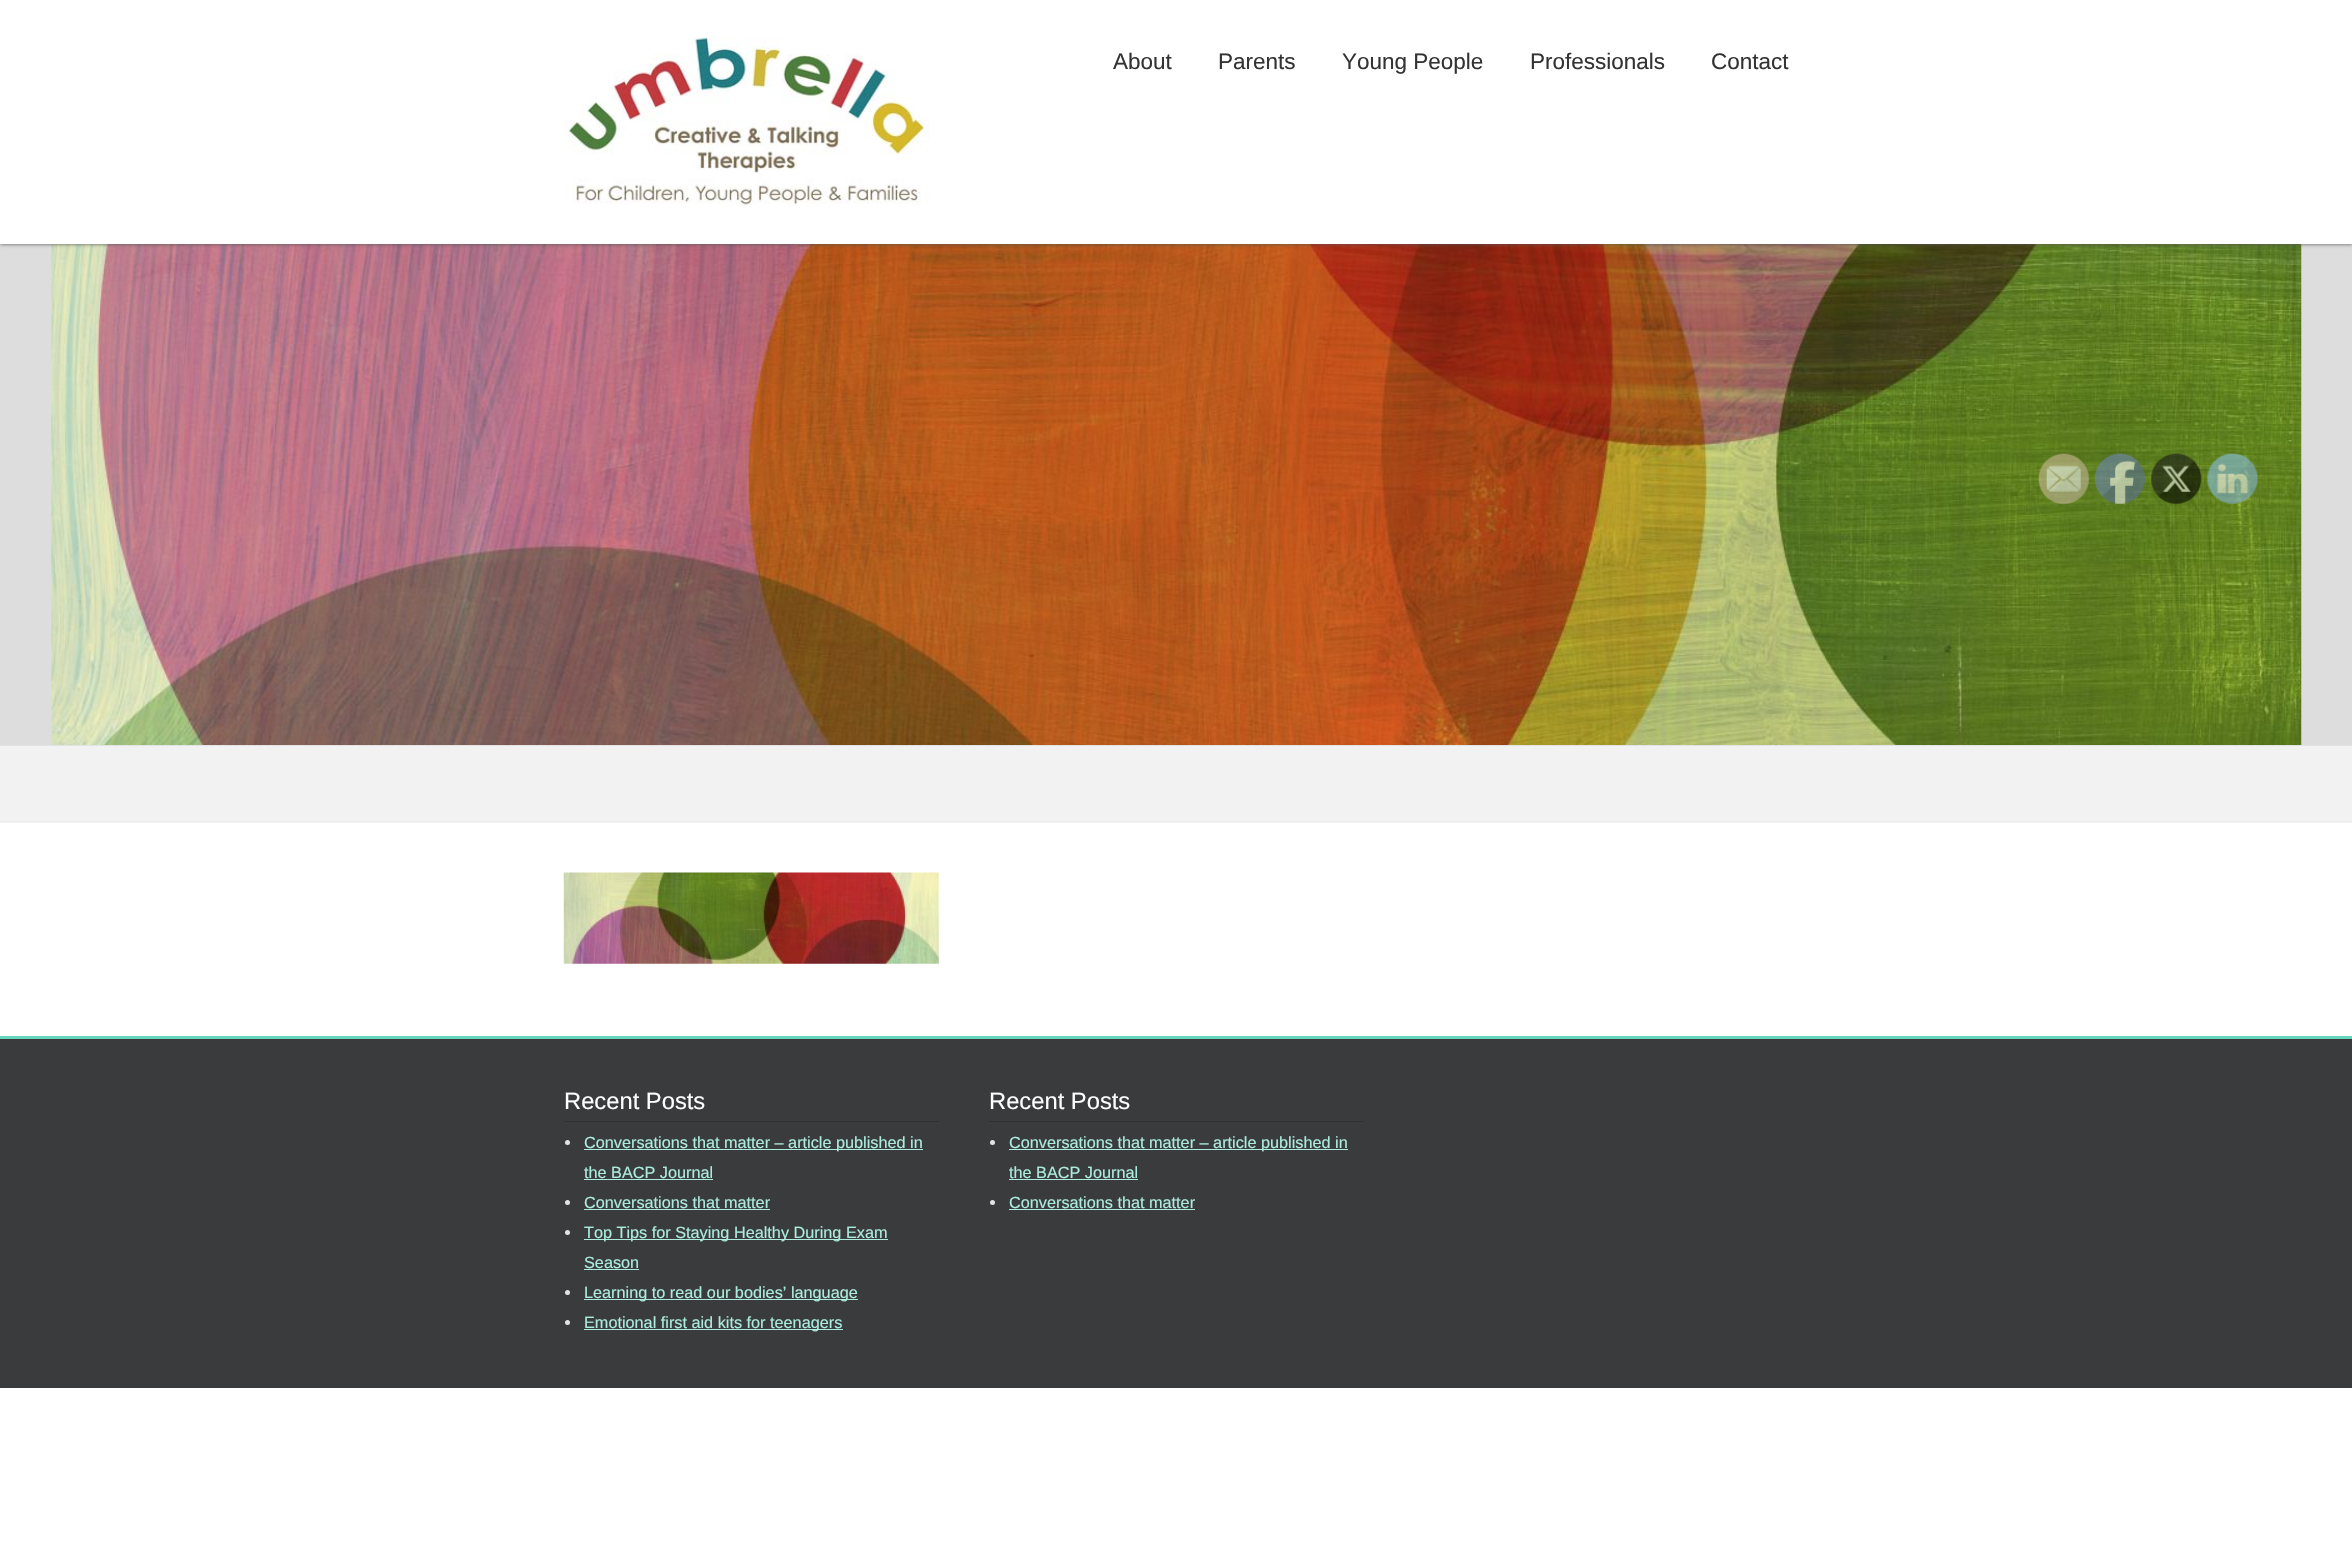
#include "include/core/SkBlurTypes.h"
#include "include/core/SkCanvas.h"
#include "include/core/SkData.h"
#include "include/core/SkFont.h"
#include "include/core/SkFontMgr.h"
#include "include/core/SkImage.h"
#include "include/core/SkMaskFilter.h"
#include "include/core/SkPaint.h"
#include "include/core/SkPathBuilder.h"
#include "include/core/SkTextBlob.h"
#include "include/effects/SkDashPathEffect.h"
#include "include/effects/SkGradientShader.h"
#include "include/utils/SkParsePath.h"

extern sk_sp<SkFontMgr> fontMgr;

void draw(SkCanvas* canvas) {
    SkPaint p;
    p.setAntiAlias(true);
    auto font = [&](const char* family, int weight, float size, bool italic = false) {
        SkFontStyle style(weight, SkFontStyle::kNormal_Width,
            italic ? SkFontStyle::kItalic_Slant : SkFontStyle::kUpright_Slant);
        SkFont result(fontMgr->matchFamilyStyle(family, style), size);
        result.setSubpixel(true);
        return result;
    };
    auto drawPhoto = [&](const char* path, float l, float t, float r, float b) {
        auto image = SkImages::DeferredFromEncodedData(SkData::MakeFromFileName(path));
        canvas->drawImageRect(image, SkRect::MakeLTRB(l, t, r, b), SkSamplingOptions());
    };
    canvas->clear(0xFFFFFFFF);
    p.setColor(0xFFDDDDDD);
    canvas->drawRect(SkRect::MakeLTRB(0, 244, 2352, 745), p);
    drawPhoto("media/2.png", 51, 244, 2302, 745);
    p.setColor(0xFF555555);
    p.setMaskFilter(SkMaskFilter::MakeBlur(kNormal_SkBlurStyle, 2));
    canvas->drawRect(SkRect::MakeLTRB(0, 0, 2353, 244), p);
    p.setMaskFilter(nullptr);
    p.setColor(0xFFFFFFFF);
    canvas->drawRect(SkRect::MakeLTRB(0, 0, 2352, 244), p);
    drawPhoto("media/1.png", 564, 37, 930, 206);
    auto font1 = font("Liberation Sans", 400, 22.5f);
    p.setColor(0xFF333333);
    {
        const struct { const char* s; float x, y; } items[] = {
            {"About", 1113, 69},
            {"Parents", 1218, 69},
            {"Young People", 1342, 69},
            {"Professionals", 1530, 69},
            {"Contact", 1711, 69},
        };
        for (auto [s, x, y] : items) {
            canvas->drawString(s, x, y, font1, p);
        }
    }
    p.setColor(0xFFE3E3E3);
    canvas->drawRect(SkRect::MakeLTRB(0, 745, 2352, 746), p);
    drawPhoto("media/3.png", 2038, 453, 2089, 504);
    drawPhoto("media/4.png", 2095, 453, 2145, 504);
    drawPhoto("media/5.png", 2151, 453, 2202, 504);
    drawPhoto("media/6.png", 2207, 453, 2258, 504);
    p.setColor(0xFFF2F2F2);
    canvas->drawRect(SkRect::MakeLTRB(0, 746, 2352, 823), p);
    p.setColor(0xFFEBEBEB);
    canvas->drawRect(SkRect::MakeLTRB(0, 821, 2352, 822), p);
    drawPhoto("media/7.png", 563, 872, 939, 964);
    {
        const struct { float l, t, r, b; SkColor color; } items[] = {
            {0, 1039, 2352, 1388, 0xFF3A3B3D},
            {0, 1036, 2352, 1039, 0xFF65D6BD},
            {564, 1121, 939, 1122, 0xFF2F3133},
        };
        for (auto [l, t, r, b, color] : items) {
            p.setColor(color);
            canvas->drawRect(SkRect::MakeLTRB(l, t, r, b), p);
        }
    }
    auto font2 = font("Liberation Sans", 400, 23.75f);
    p.setColor(0xFFFFFFFF);
    canvas->drawString("Recent Posts", 564, 1109, font2, p);
    p.setColor(0xFFE3E3E3);
    canvas->drawCircle(567.5f, 1142.5f, 2.5f, p);
    p.setColor(0xFFACECDE);
    canvas->drawRect(SkRect::MakeLTRB(584, 1149, 923, 1150), p);
    auto font3 = font("Liberation Sans", 400, 16.25f);
    canvas->drawString("Conversations that matter – article published in", 584, 1148, font3, p);
    canvas->drawString("the BACP Journal", 584, 1178, font3, p);
    canvas->drawRect(SkRect::MakeLTRB(584, 1179, 713, 1180), p);
    p.setColor(0xFFE3E3E3);
    canvas->drawCircle(567.5f, 1202.5f, 2.5f, p);
    p.setColor(0xFFACECDE);
    canvas->drawString("Conversations that matter", 584, 1208, font3, p);
    canvas->drawRect(SkRect::MakeLTRB(584, 1209, 770, 1210), p);
    p.setColor(0xFFE3E3E3);
    canvas->drawCircle(567.5f, 1232.5f, 2.5f, p);
    p.setColor(0xFFACECDE);
    canvas->drawRect(SkRect::MakeLTRB(584, 1239, 888, 1240), p);
    canvas->drawString("Top Tips for Staying Healthy During Exam", 584, 1238, font3, p);
    canvas->drawString("Season", 584, 1268, font3, p);
    canvas->drawRect(SkRect::MakeLTRB(584, 1269, 639, 1270), p);
    p.setColor(0xFFE3E3E3);
    canvas->drawCircle(567.5f, 1292.5f, 2.5f, p);
    p.setColor(0xFFACECDE);
    canvas->drawRect(SkRect::MakeLTRB(584, 1299, 858, 1300), p);
    canvas->drawString("Learning to read our bodies’ language", 584, 1298, font3, p);
    p.setColor(0xFFE3E3E3);
    canvas->drawCircle(567.5f, 1322.5f, 2.5f, p);
    p.setColor(0xFFACECDE);
    canvas->drawRect(SkRect::MakeLTRB(584, 1329, 843, 1330), p);
    canvas->drawString("Emotional first aid kits for teenagers", 584, 1328, font3, p);
    p.setColor(0xFF2F3133);
    canvas->drawRect(SkRect::MakeLTRB(989, 1121, 1364, 1122), p);
    p.setColor(0xFFFFFFFF);
    canvas->drawString("Recent Posts", 989, 1109, font2, p);
    p.setColor(0xFFE3E3E3);
    canvas->drawCircle(992.5f, 1142.5f, 2.5f, p);
    p.setColor(0xFFACECDE);
    canvas->drawRect(SkRect::MakeLTRB(1009, 1149, 1348, 1150), p);
    canvas->drawString("Conversations that matter – article published in", 1009, 1148, font3, p);
    canvas->drawString("the BACP Journal", 1009, 1178, font3, p);
    canvas->drawRect(SkRect::MakeLTRB(1009, 1179, 1138, 1180), p);
    p.setColor(0xFFE3E3E3);
    canvas->drawCircle(992.5f, 1202.5f, 2.5f, p);
    p.setColor(0xFFACECDE);
    canvas->drawString("Conversations that matter", 1009, 1208, font3, p);
    canvas->drawRect(SkRect::MakeLTRB(1009, 1209, 1195, 1210), p);
}
